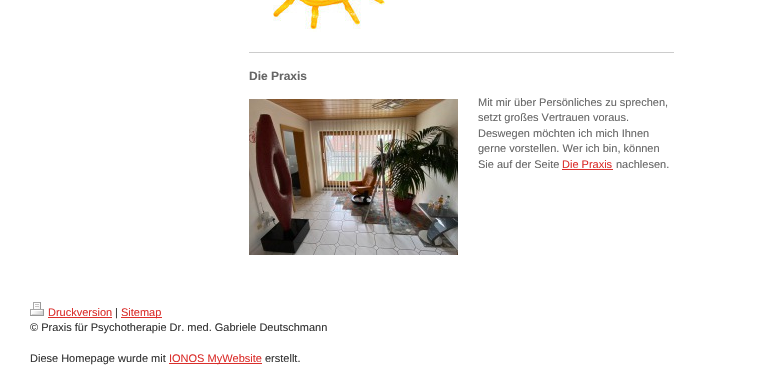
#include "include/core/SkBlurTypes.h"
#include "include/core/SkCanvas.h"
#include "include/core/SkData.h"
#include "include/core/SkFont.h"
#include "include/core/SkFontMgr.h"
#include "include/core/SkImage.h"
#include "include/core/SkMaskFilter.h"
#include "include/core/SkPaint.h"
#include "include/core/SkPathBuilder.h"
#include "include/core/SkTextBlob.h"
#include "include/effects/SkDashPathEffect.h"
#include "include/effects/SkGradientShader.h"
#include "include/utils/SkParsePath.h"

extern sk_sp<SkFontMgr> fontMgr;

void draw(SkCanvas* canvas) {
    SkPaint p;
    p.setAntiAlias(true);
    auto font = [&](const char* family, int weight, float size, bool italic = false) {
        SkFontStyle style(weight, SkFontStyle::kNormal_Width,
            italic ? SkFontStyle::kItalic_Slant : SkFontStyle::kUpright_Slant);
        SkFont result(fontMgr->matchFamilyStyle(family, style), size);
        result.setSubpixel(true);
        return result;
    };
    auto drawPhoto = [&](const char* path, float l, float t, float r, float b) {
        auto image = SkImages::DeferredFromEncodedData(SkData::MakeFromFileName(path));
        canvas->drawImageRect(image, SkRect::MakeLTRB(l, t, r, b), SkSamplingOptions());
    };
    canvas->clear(0xFFFFFFFF);
    drawPhoto("media/1.png", 273, 0, 385, 32);
    p.setColor(0xFFCCCCCC);
    canvas->drawRect(SkRect::MakeLTRB(249, 52, 674, 53), p);
    auto font1 = font("Liberation Sans", 700, 12);
    p.setColor(0xFF666666);
    canvas->drawString("Die Praxis", 249, 80, font1, p);
    drawPhoto("media/2.png", 249, 99, 458, 255);
    auto font2 = font("Liberation Sans", 400, 11);
    {
        const struct { const char* s; float x, y; } items[] = {
            {"Mit mir über Persönliches zu sprechen,", 478, 106},
            {"setzt großes Vertrauen voraus.", 478, 121},
            {"Deswegen möchten ich mich Ihnen", 478, 137},
            {"gerne vorstellen. Wer ich bin, können", 478, 152},
            {"Sie auf der Seite", 478, 168},
        };
        for (auto [s, x, y] : items) {
            canvas->drawString(s, x, y, font2, p);
        }
    }
    p.setColor(0xFFDB2F2C);
    canvas->drawString("Die Praxis", 562, 168, font2, p);
    canvas->drawRect(SkRect::MakeLTRB(562, 169, 613, 170), p);
    p.setColor(0xFF666666);
    canvas->drawString("nachlesen.", 616, 168, font2, p);
    drawPhoto("media/3.png", 30, 302, 44, 316);
    p.setColor(0xFFDB2F2C);
    canvas->drawString("Druckversion", 48, 316, font2, p);
    canvas->drawRect(SkRect::MakeLTRB(48, 317, 112, 318), p);
    p.setColor(0xFF333333);
    canvas->drawString("|", 115, 316, font2, p);
    p.setColor(0xFFDB2F2C);
    canvas->drawRect(SkRect::MakeLTRB(121, 317, 162, 318), p);
    canvas->drawString("Sitemap", 121, 316, font2, p);
    p.setColor(0xFF333333);
    canvas->drawString("© Praxis für Psychotherapie Dr. med. Gabriele Deutschmann", 30, 331, font2, p);
    canvas->drawString("Diese Homepage wurde mit", 30, 362, font2, p);
    p.setColor(0xFFDB2F2C);
    canvas->drawRect(SkRect::MakeLTRB(169, 363, 262, 364), p);
    canvas->drawString("IONOS MyWebsite", 169, 362, font2, p);
    p.setColor(0xFF333333);
    canvas->drawString("erstellt.", 265, 362, font2, p);
}
